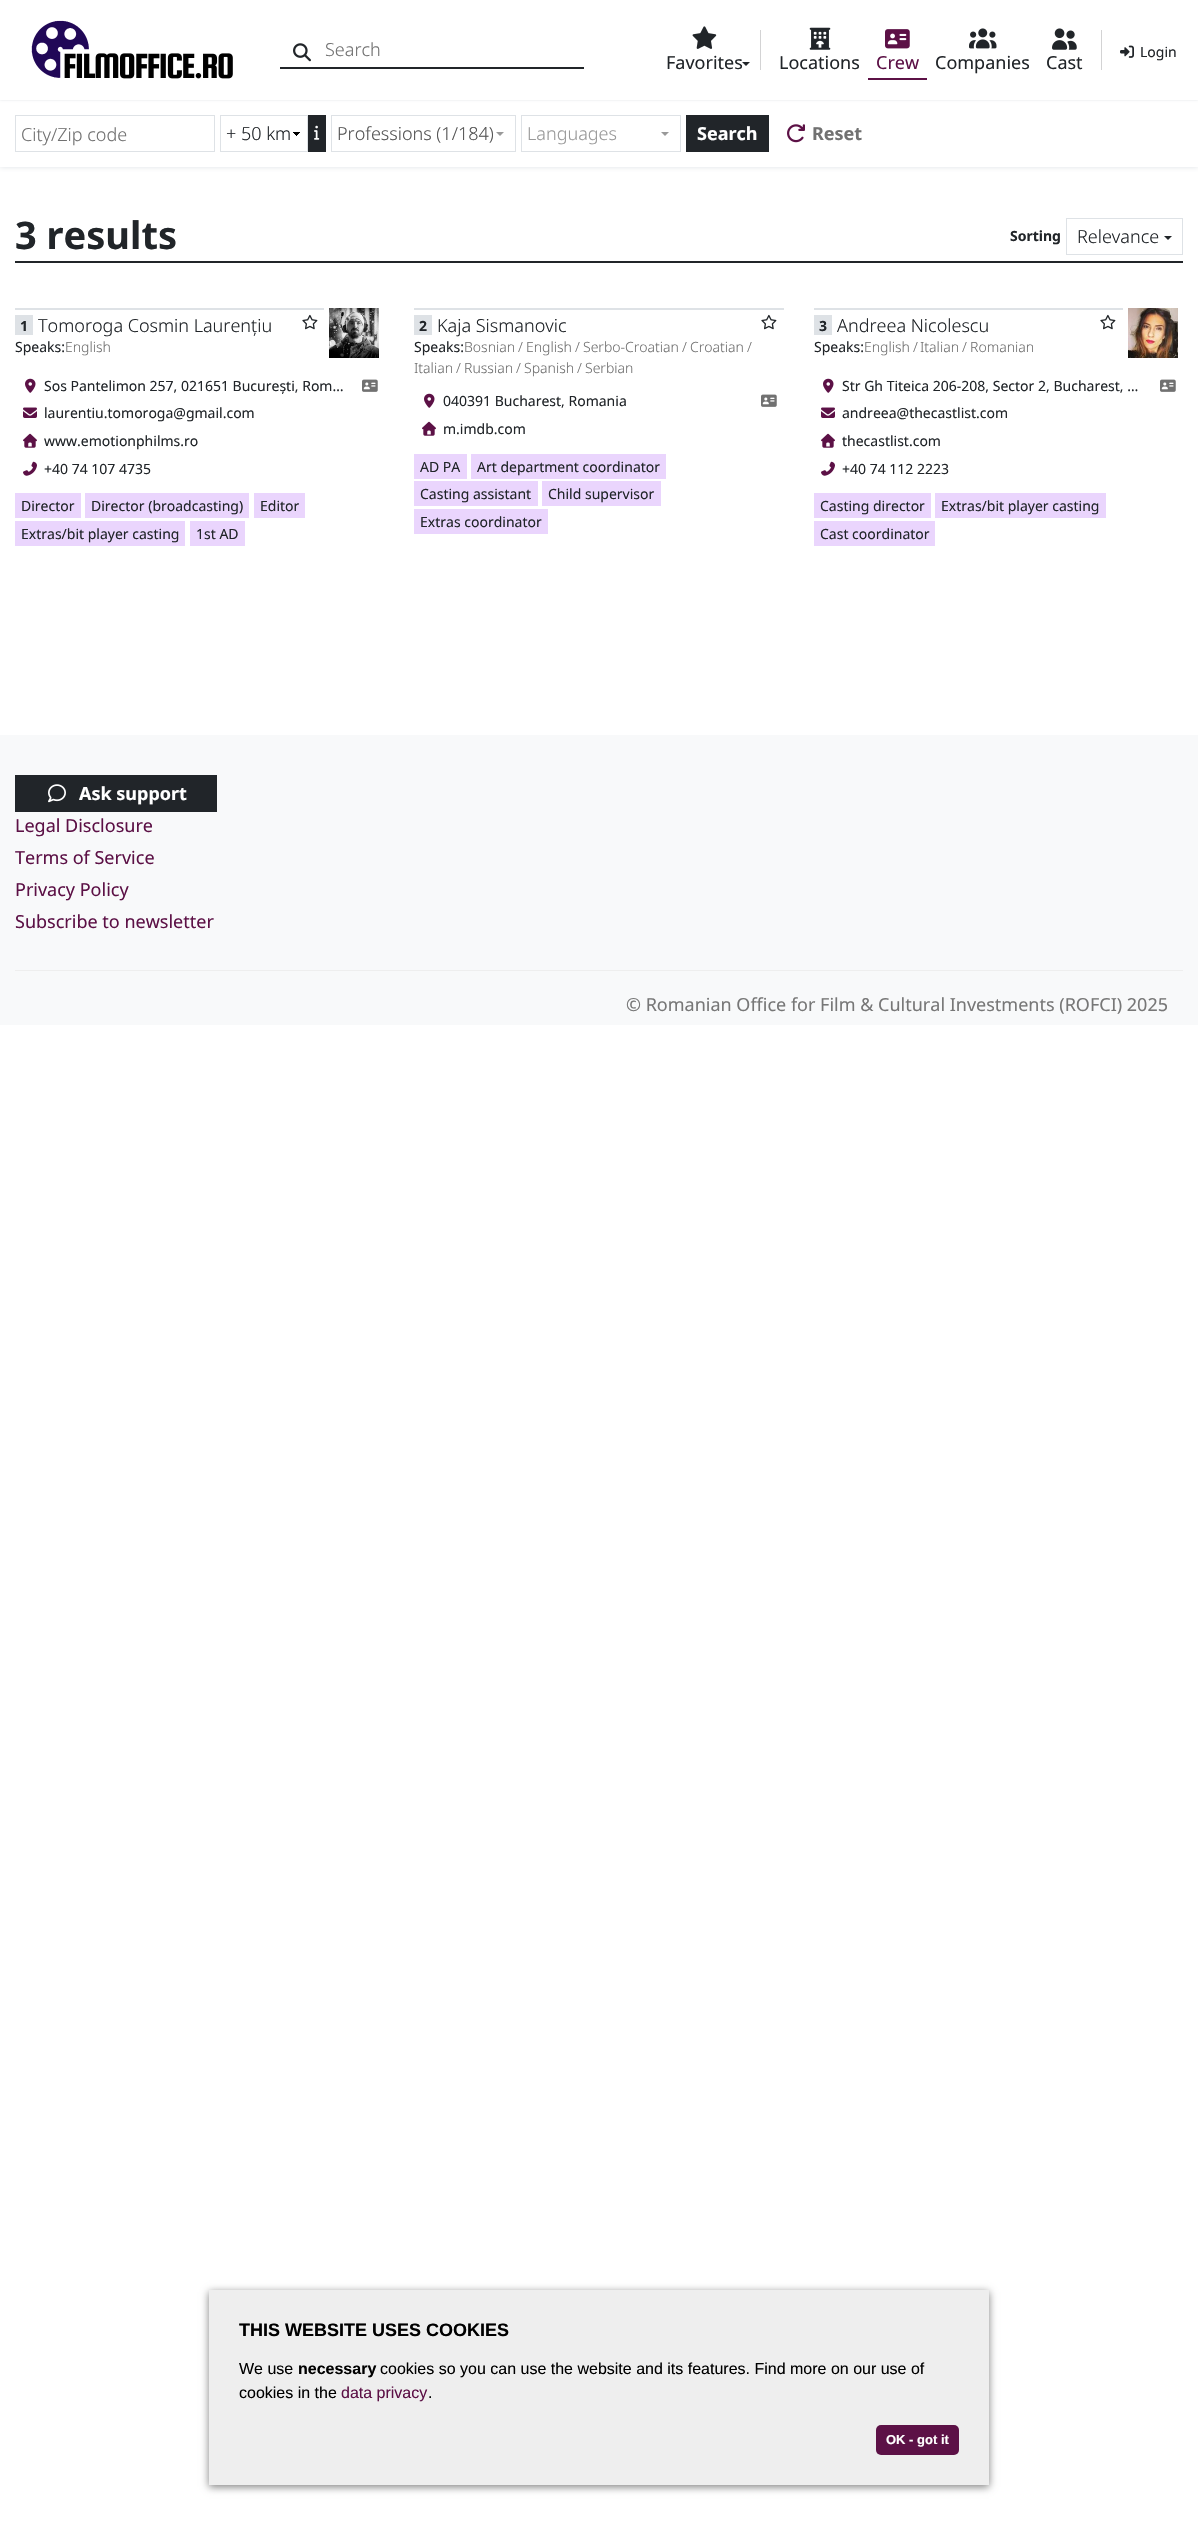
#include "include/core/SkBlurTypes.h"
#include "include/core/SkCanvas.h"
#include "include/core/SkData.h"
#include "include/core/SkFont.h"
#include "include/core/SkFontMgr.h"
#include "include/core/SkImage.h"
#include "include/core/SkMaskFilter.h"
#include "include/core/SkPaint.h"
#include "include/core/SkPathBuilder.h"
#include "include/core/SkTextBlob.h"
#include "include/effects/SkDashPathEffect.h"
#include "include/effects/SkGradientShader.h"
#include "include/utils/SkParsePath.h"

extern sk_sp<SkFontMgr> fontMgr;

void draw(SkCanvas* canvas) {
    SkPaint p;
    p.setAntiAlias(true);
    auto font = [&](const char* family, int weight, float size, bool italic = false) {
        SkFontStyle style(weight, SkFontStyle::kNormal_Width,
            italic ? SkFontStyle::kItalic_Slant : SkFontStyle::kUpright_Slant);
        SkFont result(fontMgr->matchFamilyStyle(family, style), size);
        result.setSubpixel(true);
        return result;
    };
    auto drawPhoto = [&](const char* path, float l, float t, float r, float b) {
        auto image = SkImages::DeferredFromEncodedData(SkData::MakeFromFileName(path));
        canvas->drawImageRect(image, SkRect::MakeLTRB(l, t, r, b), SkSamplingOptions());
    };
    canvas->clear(0xFFFFFFFF);
    p.setColor(0xFFDEE2E6);
    p.setMaskFilter(SkMaskFilter::MakeBlur(kNormal_SkBlurStyle, 1));
    canvas->drawRect(SkRect::MakeLTRB(0, 0, 1198, 100), p);
    p.setMaskFilter(nullptr);
    canvas->save();
    canvas->clipRect(SkRect::MakeLTRB(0, 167, 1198, 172));
    p.setMaskFilter(SkMaskFilter::MakeBlur(kNormal_SkBlurStyle, 2.5f));
    canvas->drawRect(SkRect::MakeLTRB(0, 100, 1198, 167), p);
    p.setMaskFilter(nullptr);
    canvas->restore();
    p.setColor(0xFFFFFFFF);
    canvas->drawRect(SkRect::MakeLTRB(0, 0, 1198, 100), p);
    drawPhoto("media/1.png", 31, 20, 233, 79);
    drawPhoto("media/2.png", 293, 43, 311, 62);
    p.setColor(0xFF212529);
    canvas->drawRect(SkRect::MakeLTRB(280, 67, 584, 69), p);
    auto font1 = font("Noto Sans", 300, 18);
    p.setColor(0xFF717171);
    canvas->drawString("Search", 325, 56, font1, p);
    p.setColor(0xFFD3D3D4);
    canvas->drawRect(SkRect::MakeLTRB(760, 30, 761, 70), p);
    canvas->drawRect(SkRect::MakeLTRB(1101, 30, 1102, 70), p);
    drawPhoto("media/3.png", 1120, 45, 1134, 58);
    auto font2 = font("Noto Sans", 400, 14);
    p.setColor(0xFF212529);
    canvas->drawString("Login", 1140, 57, font2, p);
    drawPhoto("media/4.png", 692, 26, 717, 49);
    auto font3 = font("Noto Sans", 400, 18);
    canvas->drawString("Favorites", 666, 69, font3, p);
    canvas->drawPath(SkPathBuilder().moveTo(742, 62).lineTo(750, 62).lineTo(746, 66).close().detach(), p);
    drawPhoto("media/5.png", 809, 27, 831, 50);
    canvas->drawString("Locations", 779, 69, font3, p);
    p.setColor(0xFF5C1146);
    canvas->drawRect(SkRect::MakeLTRB(868, 78, 927, 80), p);
    drawPhoto("media/6.png", 885, 29, 910, 49);
    canvas->drawString("Crew", 876, 69, font3, p);
    drawPhoto("media/7.png", 969, 28, 997, 49);
    p.setColor(0xFF212529);
    canvas->drawString("Companies", 935, 69, font3, p);
    drawPhoto("media/8.png", 1052, 28, 1077, 50);
    canvas->drawString("Cast", 1046, 69, font3, p);
    p.setStyle(SkPaint::kStroke_Style);
    p.setStrokeWidth(1);
    p.setColor(0xFFDEE2E6);
    canvas->drawRect(SkRect::MakeLTRB(15.5f, 115.5f, 214.5f, 151.5f), p);
    p.setStyle(SkPaint::kFill_Style);
    p.setColor(0xFF717171);
    canvas->drawString("City/Zip code", 21, 141, font1, p);
    drawPhoto("media/9.png", 293, 132, 300, 136);
    p.setStyle(SkPaint::kStroke_Style);
    p.setColor(0xFFDEE2E6);
    canvas->drawRect(SkRect::MakeLTRB(220.5f, 115.5f, 307.5f, 151.5f), p);
    p.setStyle(SkPaint::kFill_Style);
    p.setColor(0xFF212529);
    canvas->drawString("+ 50 km", 226, 140, font1, p);
    canvas->drawRect(SkRect::MakeLTRB(308, 115, 326, 152), p);
    drawPhoto("media/10.png", 314, 125, 320, 140);
    p.setStyle(SkPaint::kStroke_Style);
    p.setColor(0xFFDEE2E6);
    canvas->drawRect(SkRect::MakeLTRB(331.5f, 115.5f, 515.5f, 151.5f), p);
    p.setStyle(SkPaint::kFill_Style);
    p.setColor(0xFF555555);
    canvas->drawString("Professions (1/184)", 337, 140, font1, p);
    p.setColor(0xFF999999);
    canvas->drawPath(SkPathBuilder().moveTo(496, 132).lineTo(504, 132).lineTo(500, 136).close().detach(), p);
    p.setStyle(SkPaint::kStroke_Style);
    p.setColor(0xFFDEE2E6);
    canvas->drawRect(SkRect::MakeLTRB(521.5f, 115.5f, 680.5f, 151.5f), p);
    p.setStyle(SkPaint::kFill_Style);
    p.setColor(0xFF999999);
    canvas->drawString("Languages", 527, 140, font1, p);
    canvas->drawPath(SkPathBuilder().moveTo(661, 132).lineTo(669, 132).lineTo(665, 136).close().detach(), p);
    p.setColor(0xFF212529);
    canvas->drawRect(SkRect::MakeLTRB(686, 115, 769, 152), p);
    auto font4 = font("Noto Sans", 700, 18);
    p.setColor(0xFFFFFFFF);
    canvas->drawString("Search", 697, 140, font4, p);
    drawPhoto("media/11.png", 787, 124, 805, 143);
    p.setColor(0xFF717171);
    canvas->drawString("Reset", 812, 140, font4, p);
    p.setColor(0xFF212529);
    canvas->drawRect(SkRect::MakeLTRB(15, 261, 1183, 263), p);
    auto font5 = font("Noto Sans", 700, 38);
    canvas->drawString("3 results", 15, 249, font5, p);
    auto font6 = font("Noto Sans", 700, 14);
    canvas->drawString("Sorting", 1010, 241, font6, p);
    p.setStyle(SkPaint::kStroke_Style);
    p.setColor(0xFFDEE2E6);
    canvas->drawRect(SkRect::MakeLTRB(1066.5f, 218.5f, 1182.5f, 254.5f), p);
    p.setStyle(SkPaint::kFill_Style);
    p.setColor(0xFF212529);
    canvas->drawString("Relevance", 1077, 243, font1, p);
    canvas->drawPath(SkPathBuilder().moveTo(1164, 236).lineTo(1172, 236).lineTo(1168, 240).close().detach(), p);
    p.setColor(0xFFDEE2E6);
    canvas->drawRect(SkRect::MakeLTRB(15, 308, 324, 310), p);
    canvas->drawRect(SkRect::MakeLTRB(15, 315, 33, 335), p);
    p.setColor(0xFF212529);
    canvas->drawString("1", 20, 331, font6, p);
    canvas->drawString("Tomoroga Cosmin Laurențiu", 38, 332, font1, p);
    drawPhoto("media/12.png", 302, 314, 318, 330);
    canvas->drawString("Speaks:", 15, 352, font2, p);
    auto font7 = font("Noto Sans", 300, 14);
    p.setColor(0xFF717171);
    canvas->drawString("English", 65, 352, font7, p);
    drawPhoto("media/13.png", 329, 308, 379, 358);
    drawPhoto("media/14.png", 25, 378, 36, 393);
    p.setColor(0xFF212529);
    canvas->drawString("Sos Pantelimon 257, 021651 București, Rom…", 44, 391, font2, p);
    drawPhoto("media/15.png", 362, 379, 378, 392);
    drawPhoto("media/16.png", 23, 407, 37, 418);
    canvas->drawString("laurentiu.tomoroga@gmail.com", 44, 418, font2, p);
    drawPhoto("media/17.png", 23, 433, 37, 448);
    canvas->drawString("www.emotionphilms.ro", 44, 446, font2, p);
    drawPhoto("media/18.png", 23, 461, 37, 476);
    canvas->drawString("+40 74 107 4735", 44, 474, font2, p);
    p.setColor(0xFFEAD5FD);
    canvas->drawRect(SkRect::MakeLTRB(15, 493, 81, 518), p);
    p.setColor(0xFF212529);
    canvas->drawString("Director", 21, 511, font2, p);
    p.setColor(0xFFEAD5FD);
    canvas->drawRect(SkRect::MakeLTRB(85, 493, 249, 518), p);
    p.setColor(0xFF212529);
    canvas->drawString("Director (broadcasting)", 91, 511, font2, p);
    p.setColor(0xFFEAD5FD);
    canvas->drawRect(SkRect::MakeLTRB(254, 493, 305, 518), p);
    p.setColor(0xFF212529);
    canvas->drawString("Editor", 260, 511, font2, p);
    p.setColor(0xFFEAD5FD);
    canvas->drawRect(SkRect::MakeLTRB(15, 521, 185, 546), p);
    p.setColor(0xFF212529);
    canvas->drawString("Extras/bit player casting", 21, 539, font2, p);
    p.setColor(0xFFEAD5FD);
    canvas->drawRect(SkRect::MakeLTRB(190, 521, 245, 546), p);
    p.setColor(0xFF212529);
    canvas->drawString("1st AD", 196, 539, font2, p);
    p.setColor(0xFFDEE2E6);
    canvas->drawRect(SkRect::MakeLTRB(414, 308, 784, 310), p);
    canvas->drawRect(SkRect::MakeLTRB(414, 315, 432, 335), p);
    p.setColor(0xFF212529);
    canvas->drawString("2", 419, 331, font6, p);
    canvas->drawString("Kaja Sismanovic", 437, 332, font1, p);
    drawPhoto("media/12.png", 761, 314, 777, 330);
    canvas->drawString("Speaks:", 414, 352, font2, p);
    p.setColor(0xFF717171);
    {
        const struct { const char* s; float x, y; } items[] = {
            {"Bosnian", 464, 352},
            {"/", 518, 352},
            {"English", 526, 352},
            {"/", 575, 352},
            {"Serbo-Croatian", 583, 352},
            {"/", 682, 352},
            {"Croatian", 690, 352},
            {"/", 747, 352},
            {"Italian", 414, 373},
            {"/", 456, 373},
            {"Russian", 464, 373},
            {"/", 516, 373},
            {"Spanish", 524, 373},
            {"/", 577, 373},
            {"Serbian", 585, 373},
        };
        for (auto [s, x, y] : items) {
            canvas->drawString(s, x, y, font7, p);
        }
    }
    drawPhoto("media/14.png", 424, 393, 435, 408);
    p.setColor(0xFF212529);
    canvas->drawString("040391 Bucharest, Romania", 443, 406, font2, p);
    drawPhoto("media/15.png", 761, 394, 777, 407);
    drawPhoto("media/17.png", 422, 421, 436, 436);
    canvas->drawString("m.imdb.com", 443, 434, font2, p);
    p.setColor(0xFFEAD5FD);
    canvas->drawRect(SkRect::MakeLTRB(414, 454, 467, 479), p);
    p.setColor(0xFF212529);
    canvas->drawString("AD PA", 420, 472, font2, p);
    p.setColor(0xFFEAD5FD);
    canvas->drawRect(SkRect::MakeLTRB(471, 454, 666, 479), p);
    p.setColor(0xFF212529);
    canvas->drawString("Art department coordinator", 477, 472, font2, p);
    p.setColor(0xFFEAD5FD);
    canvas->drawRect(SkRect::MakeLTRB(414, 481, 538, 506), p);
    p.setColor(0xFF212529);
    canvas->drawString("Casting assistant", 420, 499, font2, p);
    p.setColor(0xFFEAD5FD);
    canvas->drawRect(SkRect::MakeLTRB(542, 481, 661, 506), p);
    p.setColor(0xFF212529);
    canvas->drawString("Child supervisor", 548, 499, font2, p);
    p.setColor(0xFFEAD5FD);
    canvas->drawRect(SkRect::MakeLTRB(414, 509, 548, 534), p);
    p.setColor(0xFF212529);
    canvas->drawString("Extras coordinator", 420, 527, font2, p);
    p.setColor(0xFFDEE2E6);
    canvas->drawRect(SkRect::MakeLTRB(814, 308, 1123, 310), p);
    canvas->drawRect(SkRect::MakeLTRB(814, 315, 832, 335), p);
    p.setColor(0xFF212529);
    canvas->drawString("3", 819, 331, font6, p);
    canvas->drawString("Andreea Nicolescu", 837, 332, font1, p);
    drawPhoto("media/12.png", 1100, 314, 1116, 330);
    canvas->drawString("Speaks:", 814, 352, font2, p);
    p.setColor(0xFF717171);
    {
        const struct { const char* s; float x, y; } items[] = {
            {"English", 864, 352},
            {"/", 913, 352},
            {"Italian", 920, 352},
            {"/", 962, 352},
            {"Romanian", 970, 352},
        };
        for (auto [s, x, y] : items) {
            canvas->drawString(s, x, y, font7, p);
        }
    }
    drawPhoto("media/19.png", 1128, 308, 1178, 358);
    drawPhoto("media/14.png", 823, 378, 834, 393);
    p.setColor(0xFF212529);
    canvas->drawString("Str Gh Titeica 206-208, Sector 2, Bucharest, …", 842, 391, font2, p);
    drawPhoto("media/15.png", 1160, 379, 1176, 392);
    drawPhoto("media/16.png", 821, 407, 835, 418);
    canvas->drawString("andreea@thecastlist.com", 842, 418, font2, p);
    drawPhoto("media/17.png", 821, 433, 835, 448);
    canvas->drawString("thecastlist.com", 842, 446, font2, p);
    drawPhoto("media/18.png", 821, 461, 835, 476);
    canvas->drawString("+40 74 112 2223", 842, 474, font2, p);
    p.setColor(0xFFEAD5FD);
    canvas->drawRect(SkRect::MakeLTRB(814, 493, 931, 518), p);
    p.setColor(0xFF212529);
    canvas->drawString("Casting director", 820, 511, font2, p);
    p.setColor(0xFFEAD5FD);
    canvas->drawRect(SkRect::MakeLTRB(935, 493, 1106, 518), p);
    p.setColor(0xFF212529);
    canvas->drawString("Extras/bit player casting", 941, 511, font2, p);
    p.setColor(0xFFEAD5FD);
    canvas->drawRect(SkRect::MakeLTRB(814, 521, 935, 546), p);
    p.setColor(0xFF212529);
    canvas->drawString("Cast coordinator", 820, 539, font2, p);
    p.setColor(0xFFF8F9FA);
    canvas->drawRect(SkRect::MakeLTRB(0, 735, 1198, 1025), p);
    p.setColor(0xFF212529);
    canvas->drawRect(SkRect::MakeLTRB(15, 775, 217, 812), p);
    drawPhoto("media/20.png", 48, 784, 66, 803);
    p.setColor(0xFFFFFFFF);
    canvas->drawString("Ask support", 79, 800, font4, p);
    p.setColor(0xFF5C1146);
    {
        const struct { const char* s; float x, y; } items[] = {
            {"Legal Disclosure", 15, 832},
            {"Terms of Service", 15, 864},
            {"Privacy Policy", 15, 896},
            {"Subscribe to newsletter", 15, 928},
        };
        for (auto [s, x, y] : items) {
            canvas->drawString(s, x, y, font3, p);
        }
    }
    p.setColor(0xFFEEEEEE);
    canvas->drawRect(SkRect::MakeLTRB(15, 970, 1183, 971), p);
    p.setColor(0xFF777777);
    canvas->drawString("© Romanian Office for Film & Cultural Investments (ROFCI) 2025", 626, 1011, font3, p);
    p.setColor(0x80000000);
    p.setMaskFilter(SkMaskFilter::MakeBlur(kNormal_SkBlurStyle, 4));
    canvas->drawRect(SkRect::MakeLTRB(209, 2292, 989, 2487), p);
    p.setMaskFilter(nullptr);
    p.setColor(0xFFEEEEEE);
    canvas->drawRect(SkRect::MakeLTRB(209, 2290, 989, 2485), p);
    auto font8 = font("Liberation Sans", 700, 18);
    p.setColor(0xFF000000);
    canvas->drawString("THIS WEBSITE USES COOKIES", 239, 2336, font8, p);
    auto font9 = font("Liberation Sans", 400, 16);
    canvas->drawString("We use", 239, 2374, font9, p);
    auto font10 = font("Liberation Sans", 700, 16);
    canvas->drawString("necessary", 298, 2374, font10, p);
    canvas->drawString("cookies so you can use the website and its features. Find more on our use of", 380, 2374, font9, p);
    canvas->drawString("cookies in the", 239, 2398, font9, p);
    p.setColor(0xFF5C1146);
    canvas->drawString("data privacy", 341, 2398, font9, p);
    p.setColor(0xFF000000);
    canvas->drawString(".", 428, 2398, font9, p);
    p.setColor(0xFF5C1146);
    canvas->drawRoundRect(SkRect::MakeLTRB(876, 2425, 959, 2455), 5, 5, p);
    auto font11 = font("Liberation Sans", 700, 13);
    p.setColor(0xFFFFFFFF);
    canvas->drawString("OK - got it", 886, 2444, font11, p);
}
